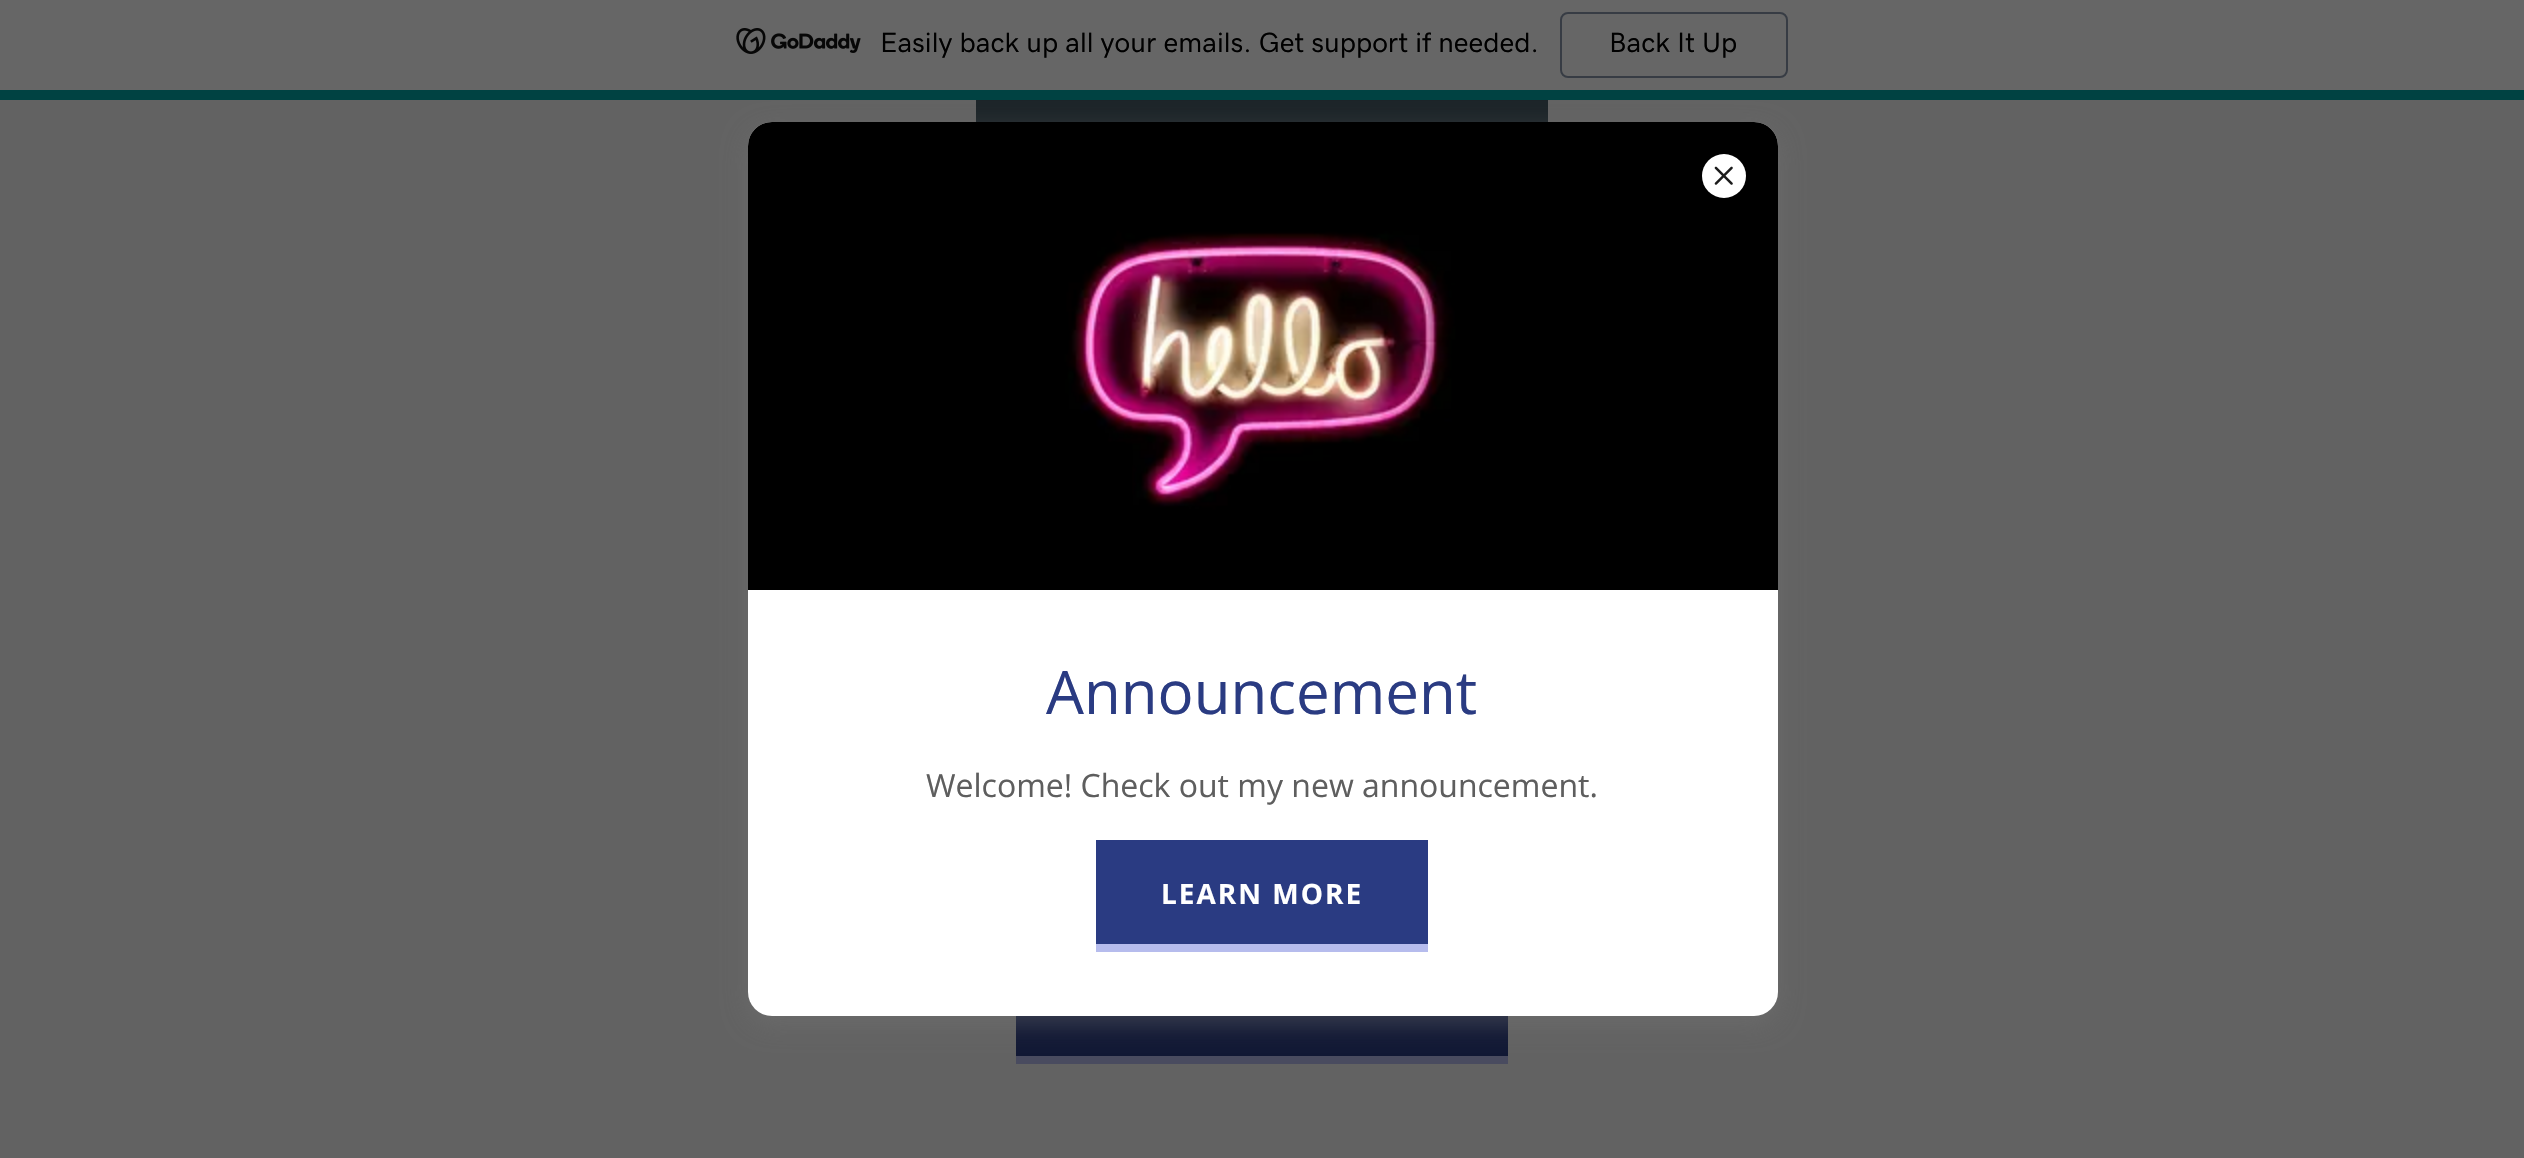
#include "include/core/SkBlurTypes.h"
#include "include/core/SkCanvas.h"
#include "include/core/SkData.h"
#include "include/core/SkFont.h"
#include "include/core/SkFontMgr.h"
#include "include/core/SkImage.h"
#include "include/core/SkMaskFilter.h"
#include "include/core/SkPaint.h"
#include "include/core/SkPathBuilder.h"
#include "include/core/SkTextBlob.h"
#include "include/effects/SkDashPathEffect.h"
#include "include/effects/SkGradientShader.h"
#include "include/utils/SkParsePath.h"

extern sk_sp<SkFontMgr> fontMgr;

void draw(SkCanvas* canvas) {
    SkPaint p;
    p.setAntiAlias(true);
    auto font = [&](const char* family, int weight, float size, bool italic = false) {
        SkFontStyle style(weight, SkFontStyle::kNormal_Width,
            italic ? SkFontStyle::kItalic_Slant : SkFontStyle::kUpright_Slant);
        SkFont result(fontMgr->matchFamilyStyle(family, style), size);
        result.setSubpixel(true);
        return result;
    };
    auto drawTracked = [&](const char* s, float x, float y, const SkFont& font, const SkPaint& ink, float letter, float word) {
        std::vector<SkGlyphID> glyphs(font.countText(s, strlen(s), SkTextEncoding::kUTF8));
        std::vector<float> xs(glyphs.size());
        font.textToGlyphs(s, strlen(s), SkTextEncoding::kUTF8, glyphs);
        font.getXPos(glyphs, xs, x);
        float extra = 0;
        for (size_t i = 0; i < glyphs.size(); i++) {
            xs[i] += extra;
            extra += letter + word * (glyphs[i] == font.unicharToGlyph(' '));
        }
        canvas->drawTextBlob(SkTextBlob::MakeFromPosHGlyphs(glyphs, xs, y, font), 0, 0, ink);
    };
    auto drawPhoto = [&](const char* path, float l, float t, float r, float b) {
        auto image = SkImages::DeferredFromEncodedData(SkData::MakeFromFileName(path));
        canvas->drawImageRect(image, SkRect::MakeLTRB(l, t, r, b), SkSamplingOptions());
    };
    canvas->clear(0xFF626262);
    p.setColor(0xFF666666);
    canvas->drawRect(SkRect::MakeLTRB(0, 0, 2524, 90), p);
    p.setColor(0xFF004242);
    canvas->drawRect(SkRect::MakeLTRB(0, 90, 2524, 100), p);
    drawPhoto("media/1.png", 736, 28, 861, 54);
    auto font1 = font("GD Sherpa", 500, 28);
    p.setColor(0xFF000000);
    canvas->drawString("Easily back up all your emails. Get support if needed.", 880, 52, font1, p);
    p.setStyle(SkPaint::kStroke_Style);
    p.setStrokeWidth(2);
    p.setColor(0xFF373C44);
    canvas->drawRoundRect(SkRect::MakeLTRB(1561, 13, 1787, 77), 7, 7, p);
    p.setStyle(SkPaint::kFill_Style);
    p.setColor(0xFF000000);
    canvas->drawString("Back It Up", 1609, 52, font1, p);
    {
        const struct { float l, t, r, b; SkColor color; } items[] = {
            {976, 100, 1548, 122, 0xFF1C2428},
            {1016, 1016, 1508, 1056, 0xFF111834},
            {1016, 1056, 1508, 1064, 0xFF494B5F},
        };
        for (auto [l, t, r, b, color] : items) {
            p.setColor(color);
            canvas->drawRect(SkRect::MakeLTRB(l, t, r, b), p);
        }
    }
    p.setColor(0x66757575);
    p.setMaskFilter(SkMaskFilter::MakeBlur(kNormal_SkBlurStyle, 12));
    canvas->drawRoundRect(SkRect::MakeLTRB(748, 130, 1778, 1024), 24, 24, p);
    p.setMaskFilter(nullptr);
    p.setColor(0xFFFFFFFF);
    canvas->drawRoundRect(SkRect::MakeLTRB(748, 122, 1778, 1016), 24, 24, p);
    drawPhoto("media/3.png", 748, 122, 1778, 590);
    canvas->drawCircle(1724, 176, 22, p);
    drawPhoto("media/2.png", 1714, 166, 1733, 185);
    auto font2 = font("Open Sans", 400, 60);
    p.setColor(0xFF2A3B82);
    canvas->drawString("Announcement", 1046, 714, font2, p);
    auto font3 = font("Open Sans", 400, 32);
    p.setColor(0xFF5E5E5E);
    canvas->drawString("Welcome! Check out my new announcement.", 926, 797, font3, p);
    p.setColor(0xFF2A3B82);
    canvas->drawRect(SkRect::MakeLTRB(1096, 840, 1428, 944), p);
    p.setColor(0xFFB6BCED);
    canvas->drawRect(SkRect::MakeLTRB(1096, 944, 1428, 952), p);
    auto font4 = font("Open Sans", 700, 28);
    p.setColor(0xFFFFFFFF);
    drawTracked("LEARN MORE", 1161, 904, font4, p, 2, 0);
}
